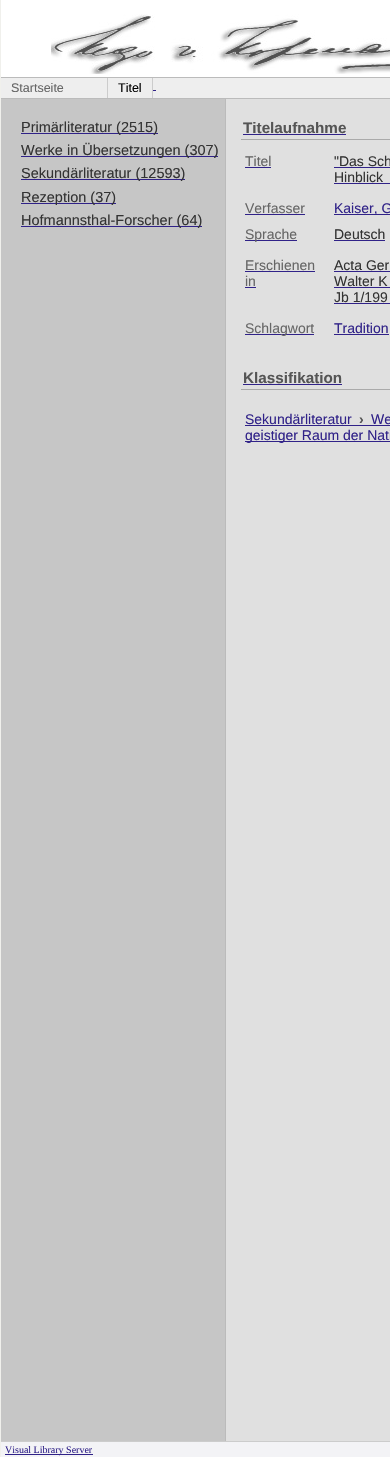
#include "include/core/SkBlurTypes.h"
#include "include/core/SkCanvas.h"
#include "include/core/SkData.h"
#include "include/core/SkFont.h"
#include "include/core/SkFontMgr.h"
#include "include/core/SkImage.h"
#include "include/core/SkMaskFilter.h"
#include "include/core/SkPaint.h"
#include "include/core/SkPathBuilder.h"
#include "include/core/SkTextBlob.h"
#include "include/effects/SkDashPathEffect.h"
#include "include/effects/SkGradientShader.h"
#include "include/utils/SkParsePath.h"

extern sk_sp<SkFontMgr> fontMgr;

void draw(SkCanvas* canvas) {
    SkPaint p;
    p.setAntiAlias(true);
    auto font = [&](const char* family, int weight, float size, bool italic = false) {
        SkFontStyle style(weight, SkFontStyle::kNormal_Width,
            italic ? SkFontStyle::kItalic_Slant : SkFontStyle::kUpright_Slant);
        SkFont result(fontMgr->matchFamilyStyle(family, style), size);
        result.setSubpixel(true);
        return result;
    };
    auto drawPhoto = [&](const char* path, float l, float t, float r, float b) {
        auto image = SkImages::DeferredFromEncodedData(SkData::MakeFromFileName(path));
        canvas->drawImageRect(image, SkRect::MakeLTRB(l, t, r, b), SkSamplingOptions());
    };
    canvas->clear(0xFFFFFFFF);
    p.setColor(0xFFF0F0EC);
    canvas->drawRect(SkRect::MakeLTRB(0, 0, 1, 1457), p);
    drawPhoto("media/1.png", 51, 14, 390, 74);
    {
        const struct { float l, t, r, b; SkColor color; } items[] = {
            {1, 78, 390, 98, 0xFFEEEEEE},
            {1, 77, 390, 78, 0xFFBBBBBB},
            {1, 98, 390, 99, 0xFFBBBBBB},
            {107, 78, 108, 98, 0xFFCCCCCC},
        };
        for (auto [l, t, r, b, color] : items) {
            p.setColor(color);
            canvas->drawRect(SkRect::MakeLTRB(l, t, r, b), p);
        }
    }
    auto font1 = font("Liberation Sans", 400, 12.5f);
    p.setColor(0xFF666666);
    canvas->drawString("Startseite", 11, 92, font1, p);
    p.setColor(0xFFCCCCCC);
    canvas->drawRect(SkRect::MakeLTRB(152, 78, 153, 98), p);
    p.setColor(0xFF000000);
    canvas->drawString("Titel", 118, 92, font1, p);
    {
        const struct { float l, t, r, b; SkColor color; } items[] = {
            {153, 90, 156, 91, 0xFF302288},
            {1, 99, 225, 1441, 0xFFC6C6C6},
            {225, 99, 226, 1441, 0xFFBBBBBB},
            {21, 133, 158, 134, 0xFF302288},
        };
        for (auto [l, t, r, b, color] : items) {
            p.setColor(color);
            canvas->drawRect(SkRect::MakeLTRB(l, t, r, b), p);
        }
    }
    auto font2 = font("Liberation Sans", 400, 14.5f);
    p.setColor(0xFF333333);
    canvas->drawString("Primärliteratur (2515)", 21, 132, font2, p);
    p.setColor(0xFF302288);
    canvas->drawRect(SkRect::MakeLTRB(21, 156, 218, 157), p);
    p.setColor(0xFF333333);
    canvas->drawString("Werke in Übersetzungen (307)", 21, 155, font2, p);
    p.setColor(0xFF302288);
    canvas->drawRect(SkRect::MakeLTRB(21, 179, 185, 180), p);
    p.setColor(0xFF333333);
    canvas->drawString("Sekundärliteratur (12593)", 21, 178, font2, p);
    p.setColor(0xFF302288);
    canvas->drawRect(SkRect::MakeLTRB(21, 203, 116, 204), p);
    p.setColor(0xFF333333);
    canvas->drawString("Rezeption (37)", 21, 202, font2, p);
    p.setColor(0xFF302288);
    canvas->drawRect(SkRect::MakeLTRB(21, 226, 202, 227), p);
    p.setColor(0xFF333333);
    canvas->drawString("Hofmannsthal-Forscher (64)", 21, 225, font2, p);
    p.setColor(0xFFE0E0E0);
    canvas->drawRect(SkRect::MakeLTRB(226, 99, 390, 1441), p);
    p.setColor(0xFFAAAAAA);
    canvas->drawRect(SkRect::MakeLTRB(241, 139, 390, 140), p);
    auto font3 = font("Liberation Sans", 700, 15.25f);
    p.setColor(0xFF555555);
    canvas->drawString("Titelaufnahme", 243, 133, font3, p);
    p.setColor(0xFF302288);
    canvas->drawRect(SkRect::MakeLTRB(243, 134, 346, 135), p);
    auto font4 = font("Liberation Sans", 400, 14);
    p.setColor(0xFF666666);
    canvas->drawString("Titel", 245, 166, font4, p);
    p.setColor(0xFF302288);
    canvas->drawRect(SkRect::MakeLTRB(245, 167, 271, 168), p);
    p.setColor(0xFF333333);
    canvas->drawString("\"Das Sch", 334, 166, font4, p);
    p.setColor(0xFF302288);
    canvas->drawRect(SkRect::MakeLTRB(334, 167, 390, 168), p);
    p.setColor(0xFF333333);
    canvas->drawString("Hinblick", 334, 182, font4, p);
    p.setColor(0xFF302288);
    canvas->drawRect(SkRect::MakeLTRB(334, 183, 390, 184), p);
    p.setColor(0xFF666666);
    canvas->drawString("Verfasser", 245, 213, font4, p);
    p.setColor(0xFF302288);
    canvas->drawRect(SkRect::MakeLTRB(245, 214, 305, 215), p);
    canvas->drawRect(SkRect::MakeLTRB(334, 214, 390, 215), p);
    canvas->drawString("Kaiser, G", 334, 213, font4, p);
    canvas->drawRect(SkRect::MakeLTRB(245, 240, 297, 241), p);
    p.setColor(0xFF666666);
    canvas->drawString("Sprache", 245, 239, font4, p);
    p.setColor(0xFF333333);
    canvas->drawString("Deutsch", 334, 239, font4, p);
    p.setColor(0xFF302288);
    canvas->drawRect(SkRect::MakeLTRB(334, 240, 385, 241), p);
    p.setColor(0xFF666666);
    canvas->drawString("Erschienen", 245, 270, font4, p);
    p.setColor(0xFF302288);
    canvas->drawRect(SkRect::MakeLTRB(245, 271, 315, 272), p);
    p.setColor(0xFF666666);
    canvas->drawString("in", 245, 286, font4, p);
    p.setColor(0xFF302288);
    canvas->drawRect(SkRect::MakeLTRB(245, 287, 256, 288), p);
    p.setColor(0xFF333333);
    canvas->drawString("Acta Ger", 334, 270, font4, p);
    p.setColor(0xFF302288);
    canvas->drawRect(SkRect::MakeLTRB(334, 271, 390, 272), p);
    p.setColor(0xFF333333);
    canvas->drawString("Walter K", 334, 286, font4, p);
    p.setColor(0xFF302288);
    canvas->drawRect(SkRect::MakeLTRB(334, 287, 390, 288), p);
    p.setColor(0xFF333333);
    canvas->drawString("Jb 1/199", 334, 302, font4, p);
    p.setColor(0xFF302288);
    canvas->drawRect(SkRect::MakeLTRB(334, 303, 390, 304), p);
    canvas->drawRect(SkRect::MakeLTRB(245, 334, 314, 335), p);
    p.setColor(0xFF666666);
    canvas->drawString("Schlagwort", 245, 333, font4, p);
    p.setColor(0xFF302288);
    canvas->drawString("Tradition", 334, 333, font4, p);
    canvas->drawRect(SkRect::MakeLTRB(334, 334, 389, 335), p);
    p.setColor(0xFFAAAAAA);
    canvas->drawRect(SkRect::MakeLTRB(241, 389, 390, 390), p);
    p.setColor(0xFF555555);
    canvas->drawString("Klassifikation", 243, 383, font3, p);
    p.setColor(0xFF302288);
    canvas->drawRect(SkRect::MakeLTRB(243, 384, 342, 385), p);
    canvas->drawString("Sekundärliteratur", 245, 424, font4, p);
    canvas->drawRect(SkRect::MakeLTRB(245, 425, 390, 426), p);
    auto font5 = font("Liberation Sans", 700, 14);
    p.setColor(0xFF555555);
    canvas->drawString("›", 359, 424, font5, p);
    p.setColor(0xFF302288);
    canvas->drawString("We", 371, 424, font4, p);
    canvas->drawRect(SkRect::MakeLTRB(245, 441, 390, 442), p);
    canvas->drawString("geistiger Raum der Nati", 245, 440, font4, p);
    {
        const struct { float l, t, r, b; SkColor color; } items[] = {
            {1, 1442, 390, 1457, 0xFFF3F3F6},
            {1, 1441, 390, 1442, 0xFFCCCCCC},
            {5, 1454, 93, 1455, 0xFF302288},
        };
        for (auto [l, t, r, b, color] : items) {
            p.setColor(color);
            canvas->drawRect(SkRect::MakeLTRB(l, t, r, b), p);
        }
    }
    auto font6 = font("Liberation Serif", 400, 10);
    canvas->drawString("Visual Library Server", 5, 1453, font6, p);
}
